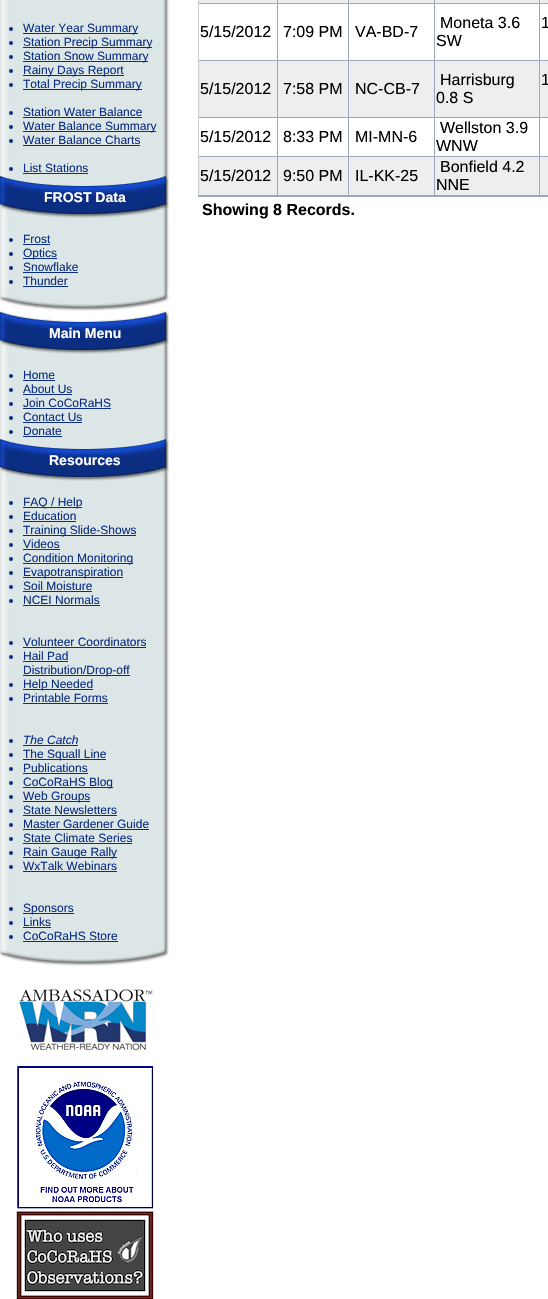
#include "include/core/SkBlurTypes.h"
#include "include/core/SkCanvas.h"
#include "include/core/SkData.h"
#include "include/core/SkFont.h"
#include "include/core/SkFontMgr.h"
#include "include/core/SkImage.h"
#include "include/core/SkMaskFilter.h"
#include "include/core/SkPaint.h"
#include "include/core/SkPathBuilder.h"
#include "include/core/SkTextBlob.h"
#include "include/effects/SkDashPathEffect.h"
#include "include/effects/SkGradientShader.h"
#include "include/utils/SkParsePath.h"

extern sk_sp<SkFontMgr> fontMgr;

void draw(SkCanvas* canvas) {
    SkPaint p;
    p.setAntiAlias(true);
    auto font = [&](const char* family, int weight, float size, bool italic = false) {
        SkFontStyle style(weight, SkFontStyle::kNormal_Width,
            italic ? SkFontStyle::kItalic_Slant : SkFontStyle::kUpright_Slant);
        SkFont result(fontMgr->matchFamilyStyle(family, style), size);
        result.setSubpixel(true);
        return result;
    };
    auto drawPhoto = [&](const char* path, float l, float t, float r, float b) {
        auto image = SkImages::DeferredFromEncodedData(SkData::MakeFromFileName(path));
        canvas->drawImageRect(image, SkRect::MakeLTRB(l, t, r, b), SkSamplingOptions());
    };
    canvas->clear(0xFFFFFFFF);
    drawPhoto("media/1.png", 0, 0, 169, 294);
    p.setColor(0xFF0C2E82);
    canvas->drawCircle(11, 29, 2, p);
    canvas->drawRect(SkRect::MakeLTRB(23, 33, 138, 34), p);
    auto font1 = font("Liberation Sans", 400, 12);
    canvas->drawString("Water Year Summary", 23, 32, font1, p);
    canvas->drawCircle(11, 43, 2, p);
    canvas->drawRect(SkRect::MakeLTRB(23, 47, 152, 48), p);
    canvas->drawString("Station Precip Summary", 23, 46, font1, p);
    canvas->drawCircle(11, 57, 2, p);
    canvas->drawRect(SkRect::MakeLTRB(23, 61, 148, 62), p);
    canvas->drawString("Station Snow Summary", 23, 60, font1, p);
    canvas->drawCircle(11, 71, 2, p);
    canvas->drawRect(SkRect::MakeLTRB(23, 75, 124, 76), p);
    canvas->drawString("Rainy Days Report", 23, 74, font1, p);
    canvas->drawCircle(11, 85, 2, p);
    canvas->drawRect(SkRect::MakeLTRB(23, 89, 142, 90), p);
    canvas->drawString("Total Precip Summary", 23, 88, font1, p);
    canvas->drawCircle(11, 113, 2, p);
    canvas->drawString("Station Water Balance", 23, 116, font1, p);
    canvas->drawRect(SkRect::MakeLTRB(23, 117, 142, 118), p);
    canvas->drawCircle(11, 127, 2, p);
    canvas->drawRect(SkRect::MakeLTRB(23, 131, 156, 132), p);
    canvas->drawString("Water Balance Summary", 23, 130, font1, p);
    canvas->drawCircle(11, 141, 2, p);
    canvas->drawString("Water Balance Charts", 23, 144, font1, p);
    canvas->drawRect(SkRect::MakeLTRB(23, 145, 140, 146), p);
    canvas->drawCircle(11, 169, 2, p);
    canvas->drawString("List Stations", 23, 172, font1, p);
    canvas->drawRect(SkRect::MakeLTRB(23, 173, 88, 174), p);
    drawPhoto("media/2.png", 0, 175, 169, 218);
    auto font2 = font("Liberation Sans", 700, 14);
    p.setColor(0xFFFFFFFF);
    canvas->drawString("FROST Data", 44, 202, font2, p);
    p.setColor(0xFF0C2E82);
    canvas->drawCircle(11, 240, 2, p);
    canvas->drawString("Frost", 23, 243, font1, p);
    canvas->drawRect(SkRect::MakeLTRB(23, 244, 50, 245), p);
    canvas->drawCircle(11, 254, 2, p);
    canvas->drawRect(SkRect::MakeLTRB(23, 258, 57, 259), p);
    canvas->drawString("Optics", 23, 257, font1, p);
    canvas->drawCircle(11, 268, 2, p);
    canvas->drawString("Snowflake", 23, 271, font1, p);
    canvas->drawRect(SkRect::MakeLTRB(23, 272, 78, 273), p);
    canvas->drawCircle(11, 282, 2, p);
    canvas->drawString("Thunder", 23, 285, font1, p);
    canvas->drawRect(SkRect::MakeLTRB(23, 286, 68, 287), p);
    drawPhoto("media/3.png", 0, 294, 169, 311);
    drawPhoto("media/4.png", 0, 354, 169, 949);
    drawPhoto("media/5.png", 0, 311, 169, 354);
    p.setColor(0xFFFFFFFF);
    canvas->drawString("Main Menu", 49, 338, font2, p);
    p.setColor(0xFF0C2E82);
    canvas->drawCircle(11, 376, 2, p);
    canvas->drawString("Home", 23, 379, font1, p);
    canvas->drawRect(SkRect::MakeLTRB(23, 380, 55, 381), p);
    canvas->drawCircle(11, 390, 2, p);
    canvas->drawString("About Us", 23, 393, font1, p);
    canvas->drawRect(SkRect::MakeLTRB(23, 394, 72, 395), p);
    canvas->drawCircle(11, 404, 2, p);
    canvas->drawString("Join CoCoRaHS", 23, 407, font1, p);
    canvas->drawRect(SkRect::MakeLTRB(23, 408, 111, 409), p);
    canvas->drawCircle(11, 418, 2, p);
    canvas->drawString("Contact Us", 23, 421, font1, p);
    canvas->drawRect(SkRect::MakeLTRB(23, 422, 82, 423), p);
    canvas->drawCircle(11, 432, 2, p);
    canvas->drawString("Donate", 23, 435, font1, p);
    canvas->drawRect(SkRect::MakeLTRB(23, 436, 62, 437), p);
    drawPhoto("media/2.png", 0, 438, 169, 481);
    p.setColor(0xFFFFFFFF);
    canvas->drawString("Resources", 49, 465, font2, p);
    p.setColor(0xFF0C2E82);
    canvas->drawCircle(11, 503, 2, p);
    canvas->drawRect(SkRect::MakeLTRB(23, 507, 82, 508), p);
    canvas->drawString("FAQ / Help", 23, 506, font1, p);
    canvas->drawCircle(11, 517, 2, p);
    canvas->drawString("Education", 23, 520, font1, p);
    canvas->drawRect(SkRect::MakeLTRB(23, 521, 76, 522), p);
    canvas->drawCircle(11, 531, 2, p);
    canvas->drawRect(SkRect::MakeLTRB(23, 535, 136, 536), p);
    canvas->drawString("Training Slide-Shows", 23, 534, font1, p);
    canvas->drawCircle(11, 545, 2, p);
    canvas->drawString("Videos", 23, 548, font1, p);
    canvas->drawRect(SkRect::MakeLTRB(23, 549, 60, 550), p);
    canvas->drawCircle(11, 559, 2, p);
    canvas->drawRect(SkRect::MakeLTRB(23, 563, 133, 564), p);
    canvas->drawString("Condition Monitoring", 23, 562, font1, p);
    canvas->drawCircle(11, 573, 2, p);
    canvas->drawRect(SkRect::MakeLTRB(23, 577, 123, 578), p);
    canvas->drawString("Evapotranspiration", 23, 576, font1, p);
    canvas->drawCircle(11, 587, 2, p);
    canvas->drawString("Soil Moisture", 23, 590, font1, p);
    canvas->drawRect(SkRect::MakeLTRB(23, 591, 92, 592), p);
    canvas->drawCircle(11, 601, 2, p);
    canvas->drawString("NCEI Normals", 23, 604, font1, p);
    canvas->drawRect(SkRect::MakeLTRB(23, 605, 100, 606), p);
    canvas->drawCircle(11, 643, 2, p);
    canvas->drawString("Volunteer Coordinators", 23, 646, font1, p);
    canvas->drawRect(SkRect::MakeLTRB(23, 647, 146, 648), p);
    canvas->drawCircle(11, 657, 2, p);
    canvas->drawString("Hail Pad", 23, 660, font1, p);
    canvas->drawRect(SkRect::MakeLTRB(23, 661, 68, 662), p);
    canvas->drawRect(SkRect::MakeLTRB(23, 675, 130, 676), p);
    canvas->drawString("Distribution/Drop-off", 23, 674, font1, p);
    canvas->drawCircle(11, 685, 2, p);
    canvas->drawRect(SkRect::MakeLTRB(23, 689, 93, 690), p);
    canvas->drawString("Help Needed", 23, 688, font1, p);
    canvas->drawCircle(11, 699, 2, p);
    canvas->drawString("Printable Forms", 23, 702, font1, p);
    canvas->drawRect(SkRect::MakeLTRB(23, 703, 108, 704), p);
    canvas->drawCircle(11, 741, 2, p);
    auto font3 = font("Liberation Sans", 400, 12, true);
    canvas->drawString("The Catch", 23, 744, font3, p);
    canvas->drawRect(SkRect::MakeLTRB(23, 745, 78, 746), p);
    canvas->drawCircle(11, 755, 2, p);
    canvas->drawRect(SkRect::MakeLTRB(23, 759, 106, 760), p);
    canvas->drawString("The Squall Line", 23, 758, font1, p);
    canvas->drawCircle(11, 769, 2, p);
    canvas->drawString("Publications", 23, 772, font1, p);
    canvas->drawRect(SkRect::MakeLTRB(23, 773, 88, 774), p);
    canvas->drawCircle(11, 783, 2, p);
    canvas->drawRect(SkRect::MakeLTRB(23, 787, 113, 788), p);
    canvas->drawString("CoCoRaHS Blog", 23, 786, font1, p);
    canvas->drawCircle(11, 797, 2, p);
    canvas->drawRect(SkRect::MakeLTRB(23, 801, 90, 802), p);
    canvas->drawString("Web Groups", 23, 800, font1, p);
    canvas->drawCircle(11, 811, 2, p);
    canvas->drawString("State Newsletters", 23, 814, font1, p);
    canvas->drawRect(SkRect::MakeLTRB(23, 815, 117, 816), p);
    canvas->drawCircle(11, 825, 2, p);
    canvas->drawString("Master Gardener Guide", 23, 828, font1, p);
    canvas->drawRect(SkRect::MakeLTRB(23, 829, 149, 830), p);
    canvas->drawCircle(11, 839, 2, p);
    canvas->drawString("State Climate Series", 23, 842, font1, p);
    canvas->drawRect(SkRect::MakeLTRB(23, 843, 132, 844), p);
    canvas->drawCircle(11, 853, 2, p);
    canvas->drawRect(SkRect::MakeLTRB(23, 857, 117, 858), p);
    canvas->drawString("Rain Gauge Rally", 23, 856, font1, p);
    canvas->drawCircle(11, 867, 2, p);
    canvas->drawString("WxTalk Webinars", 23, 870, font1, p);
    canvas->drawRect(SkRect::MakeLTRB(23, 871, 117, 872), p);
    canvas->drawCircle(11, 909, 2, p);
    canvas->drawRect(SkRect::MakeLTRB(23, 913, 74, 914), p);
    canvas->drawString("Sponsors", 23, 912, font1, p);
    canvas->drawCircle(11, 923, 2, p);
    canvas->drawString("Links", 23, 926, font1, p);
    canvas->drawRect(SkRect::MakeLTRB(23, 927, 51, 928), p);
    canvas->drawCircle(11, 937, 2, p);
    canvas->drawString("CoCoRaHS Store", 23, 940, font1, p);
    canvas->drawRect(SkRect::MakeLTRB(23, 941, 118, 942), p);
    drawPhoto("media/3.png", 0, 949, 169, 966);
    drawPhoto("media/6.png", 19, 989, 153, 1051);
    drawPhoto("media/7.png", 17, 1066, 154, 1209);
    drawPhoto("media/8.png", 16, 1211, 154, 1299);
    {
        const struct { float l, t, r, b; SkColor color; } items[] = {
            {199, 157, 548, 195, 0xFFEEEEEE},
            {277, 156, 278, 197, 0xFF9AAABB},
            {198, 156, 199, 197, 0xFFCCCCCC},
            {348, 156, 349, 197, 0xFF9AAABB},
            {434, 156, 435, 197, 0xFF9AAABB},
            {539, 156, 540, 197, 0xFF9AAABB},
            {198, 195, 548, 197, 0xFF9AAABB},
            {199, 0, 548, 3, 0xFFEEEEEE},
            {199, 61, 548, 117, 0xFFEEEEEE},
            {539, 156, 548, 157, 0xFF9AAABB},
            {539, 117, 540, 157, 0xFF9AAABB},
            {539, 117, 548, 118, 0xFF9AAABB},
            {539, 60, 540, 118, 0xFF9AAABB},
            {539, 60, 548, 61, 0xFF9AAABB},
            {539, 3, 540, 61, 0xFF9AAABB},
            {539, 3, 548, 4, 0xFF9AAABB},
            {539, 0, 540, 4, 0xFF9AAABB},
            {434, 156, 540, 157, 0xFF9AAABB},
            {434, 117, 435, 157, 0xFF9AAABB},
            {434, 117, 540, 118, 0xFF9AAABB},
            {434, 60, 435, 118, 0xFF9AAABB},
            {434, 60, 540, 61, 0xFF9AAABB},
            {434, 3, 435, 61, 0xFF9AAABB},
            {434, 3, 540, 4, 0xFF9AAABB},
            {434, 0, 435, 4, 0xFF9AAABB},
            {348, 156, 435, 157, 0xFF9AAABB},
            {348, 117, 349, 157, 0xFF9AAABB},
            {348, 117, 435, 118, 0xFF9AAABB},
            {348, 60, 349, 118, 0xFF9AAABB},
            {348, 60, 435, 61, 0xFF9AAABB},
            {348, 3, 349, 61, 0xFF9AAABB},
            {348, 3, 435, 4, 0xFF9AAABB},
            {348, 0, 349, 4, 0xFF9AAABB},
            {277, 156, 349, 157, 0xFF9AAABB},
            {277, 117, 278, 157, 0xFF9AAABB},
            {277, 117, 349, 118, 0xFF9AAABB},
            {277, 60, 278, 118, 0xFF9AAABB},
            {277, 60, 349, 61, 0xFF9AAABB},
            {277, 3, 278, 61, 0xFF9AAABB},
            {277, 3, 349, 4, 0xFF9AAABB},
            {277, 0, 278, 4, 0xFF9AAABB},
            {198, 156, 278, 157, 0xFF9AAABB},
            {198, 117, 199, 157, 0xFFCCCCCC},
            {198, 117, 278, 118, 0xFF9AAABB},
            {198, 60, 199, 118, 0xFFCCCCCC},
            {198, 60, 278, 61, 0xFF9AAABB},
            {198, 3, 199, 61, 0xFFCCCCCC},
            {198, 3, 278, 4, 0xFF9AAABB},
            {198, 0, 199, 4, 0xFFCCCCCC},
        };
        for (auto [l, t, r, b, color] : items) {
            p.setColor(color);
            canvas->drawRect(SkRect::MakeLTRB(l, t, r, b), p);
        }
    }
    auto font4 = font("Liberation Sans", 400, 16);
    p.setColor(0xFF000000);
    {
        const struct { const char* s; float x, y; } items[] = {
            {"Moneta 3.6", 440, 28},
            {"SW", 436, 46},
            {"1", 541, 28},
            {"5/15/2012", 200, 37},
            {"7:09 PM", 283, 37},
            {"VA-BD-7", 355, 37},
            {"Harrisburg", 440, 85},
            {"0.8 S", 436, 103},
            {"1", 541, 85},
            {"5/15/2012", 200, 94},
            {"7:58 PM", 283, 94},
            {"NC-CB-7", 355, 94},
            {"5/15/2012", 200, 142},
            {"8:33 PM", 283, 142},
            {"MI-MN-6", 355, 142},
            {"Wellston 3.9", 440, 133},
            {"WNW", 436, 151},
            {"5/15/2012", 200, 181},
            {"9:50 PM", 283, 181},
            {"IL-KK-25", 355, 181},
            {"Bonfield 4.2", 440, 172},
            {"NNE", 436, 190},
        };
        for (auto [s, x, y] : items) {
            canvas->drawString(s, x, y, font4, p);
        }
    }
    auto font5 = font("Liberation Sans", 700, 16);
    canvas->drawString("Showing 8 Records.", 202, 215, font5, p);
}
